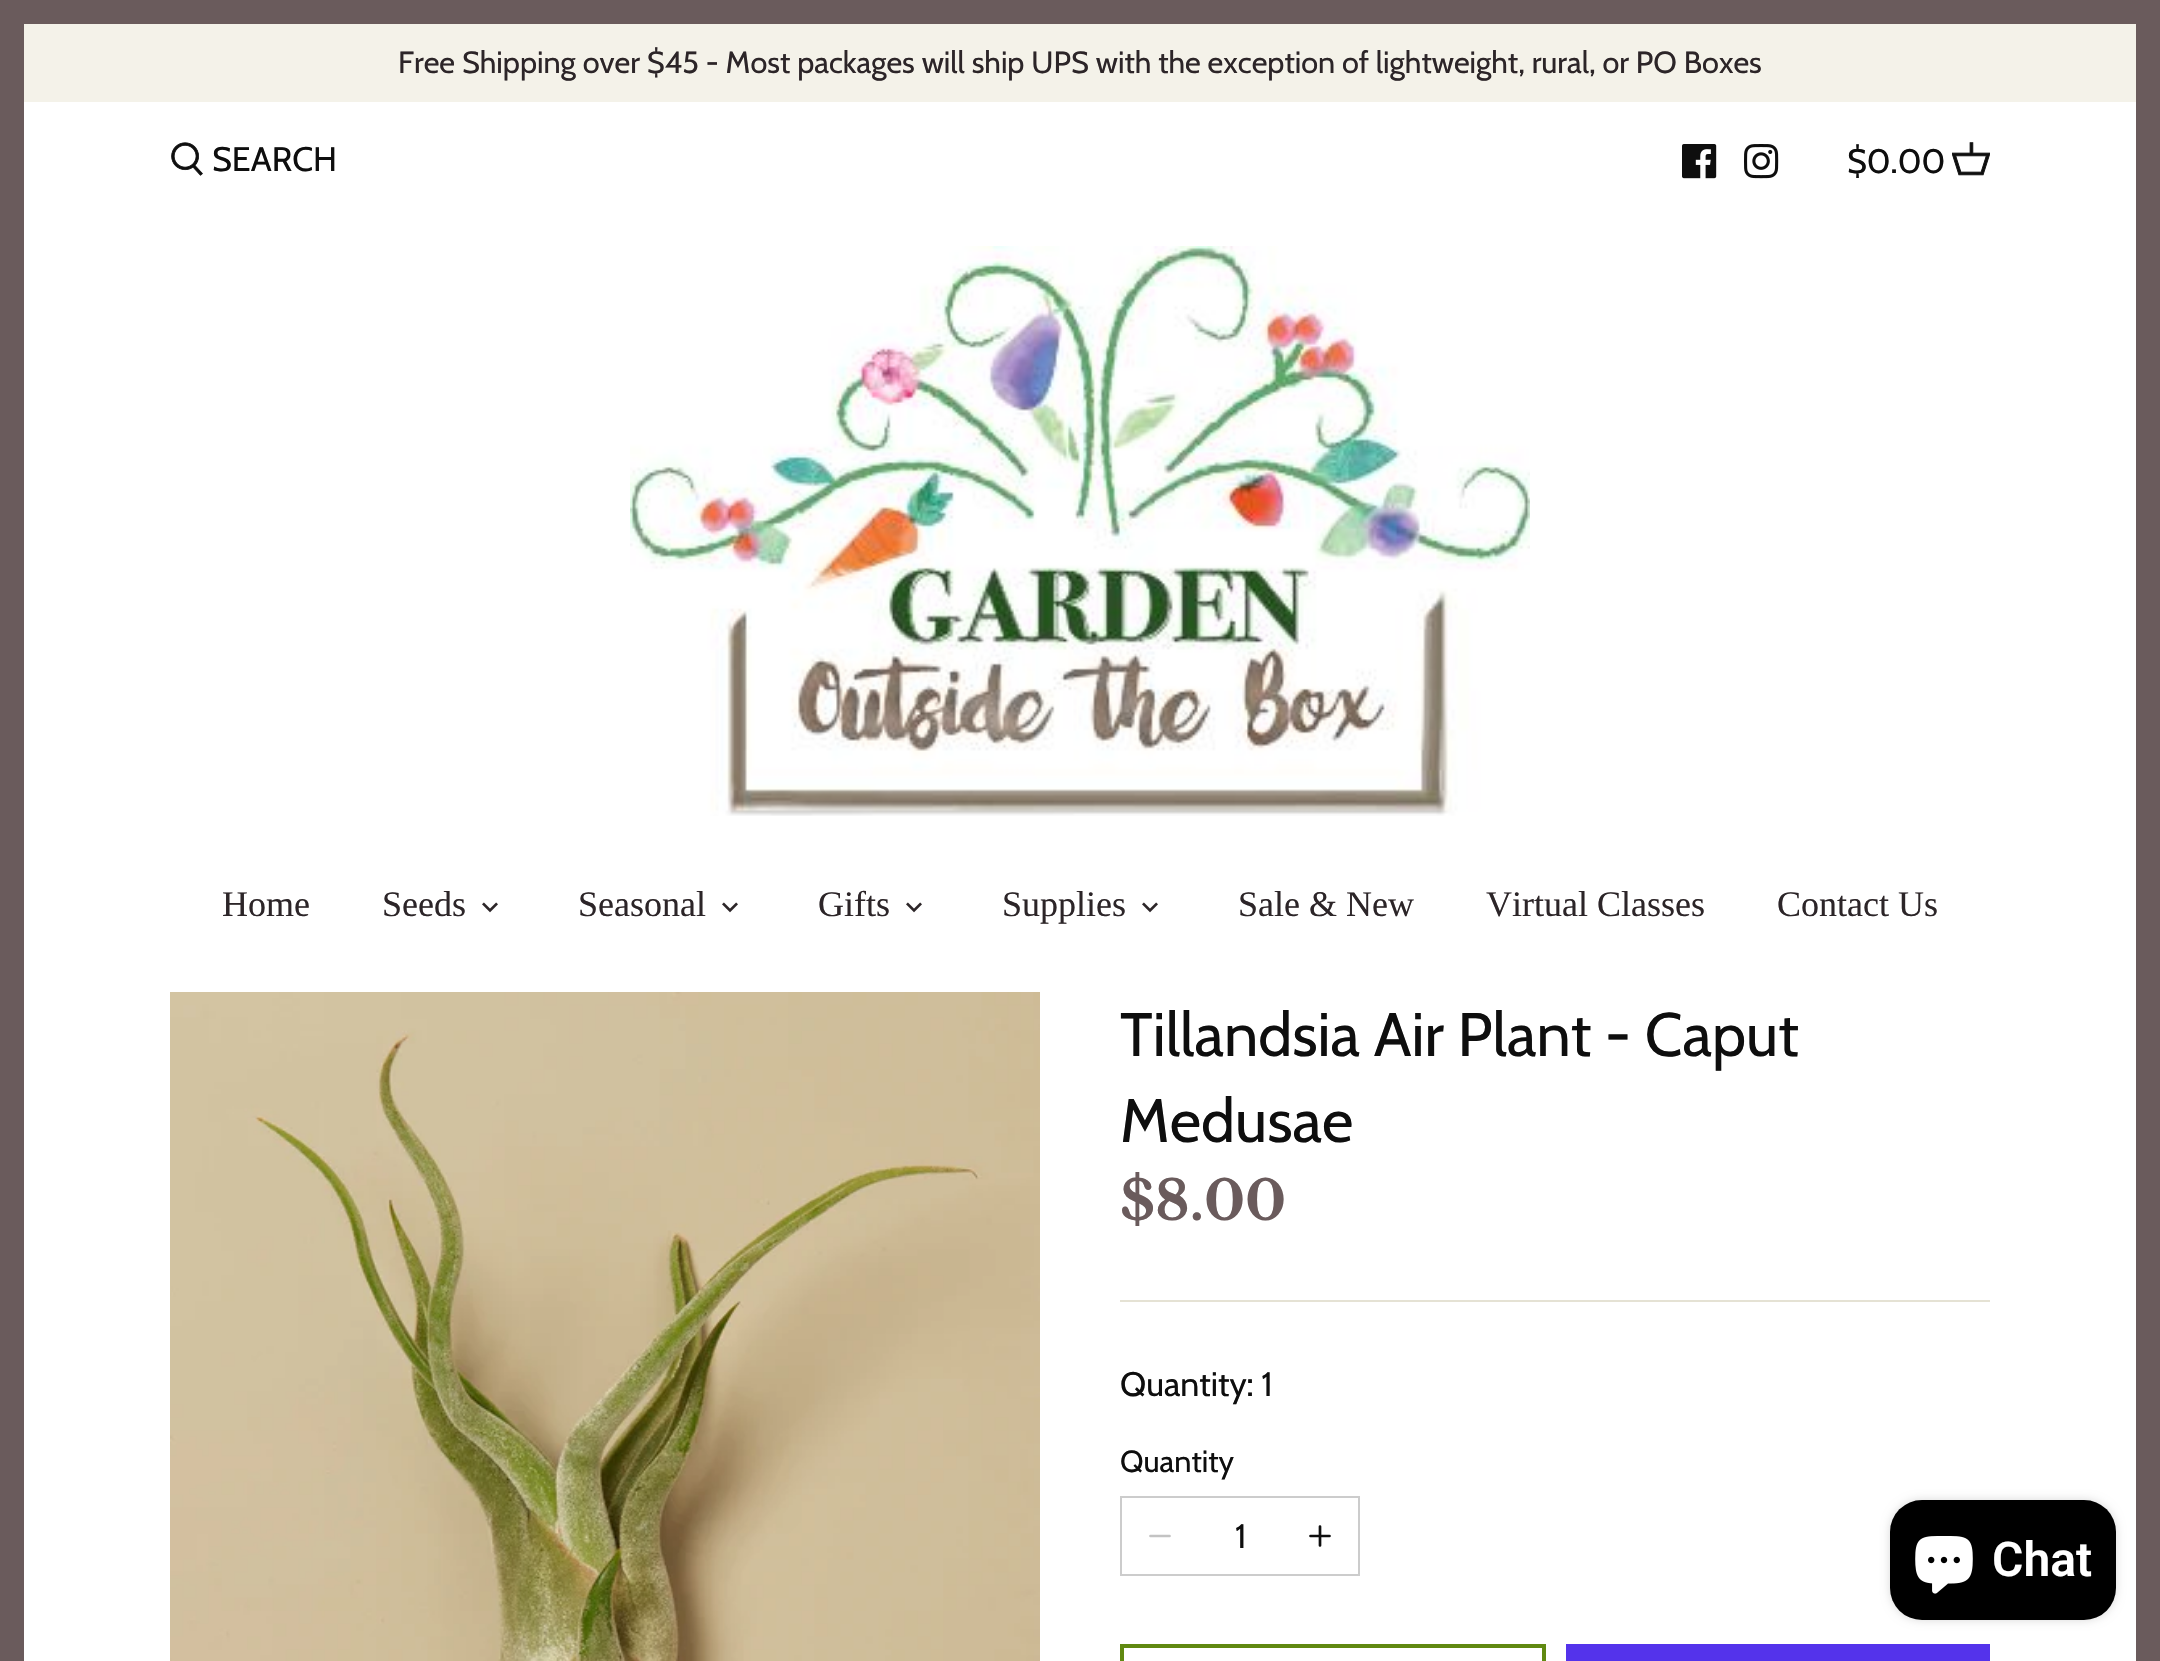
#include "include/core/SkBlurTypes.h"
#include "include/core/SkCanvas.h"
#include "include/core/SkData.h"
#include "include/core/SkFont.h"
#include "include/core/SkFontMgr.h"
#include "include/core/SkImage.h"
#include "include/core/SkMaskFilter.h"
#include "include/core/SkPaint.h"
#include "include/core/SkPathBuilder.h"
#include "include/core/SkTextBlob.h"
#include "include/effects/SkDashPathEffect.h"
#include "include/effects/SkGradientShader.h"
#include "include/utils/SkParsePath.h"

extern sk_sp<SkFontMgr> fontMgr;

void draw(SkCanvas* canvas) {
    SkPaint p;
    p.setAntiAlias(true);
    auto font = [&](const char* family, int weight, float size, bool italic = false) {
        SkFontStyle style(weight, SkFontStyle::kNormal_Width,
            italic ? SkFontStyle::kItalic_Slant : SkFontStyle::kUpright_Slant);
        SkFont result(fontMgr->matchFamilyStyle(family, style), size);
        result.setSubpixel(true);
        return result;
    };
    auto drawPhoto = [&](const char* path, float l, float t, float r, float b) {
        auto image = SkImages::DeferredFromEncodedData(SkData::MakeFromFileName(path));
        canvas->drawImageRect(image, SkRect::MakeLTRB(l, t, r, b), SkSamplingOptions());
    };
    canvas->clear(0xFFFFFFFF);
    p.setStyle(SkPaint::kStroke_Style);
    p.setStrokeWidth(24);
    p.setColor(0xFF6A5B5C);
    canvas->drawRect(SkRect::MakeLTRB(12, 12, 2148, 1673), p);
    p.setStyle(SkPaint::kFill_Style);
    p.setColor(0xFFF4F2E9);
    canvas->drawRect(SkRect::MakeLTRB(24, 24, 2136, 102), p);
    auto font1 = font("Cabin", 400, 30.6f);
    p.setColor(0xFF2C2528);
    canvas->drawString("Free Shipping over $45 - Most packages will ship UPS with the exception of lightweight, rural, or PO Boxes", 398, 73, font1, p);
    drawPhoto("media/1.png", 171, 142, 203, 176);
    auto font2 = font("Cabin", 400, 34);
    p.setColor(0xFF0E0E0E);
    canvas->drawString("SEARCH", 212, 171, font2, p);
    drawPhoto("media/2.png", 1682, 144, 1717, 179);
    drawPhoto("media/3.png", 1744, 144, 1779, 179);
    canvas->drawString("$0.00", 1847, 173, font2, p);
    drawPhoto("media/4.png", 1952, 142, 1990, 176);
    drawPhoto("media/5.png", 630, 246, 1530, 816);
    auto font3 = font("Liberation Serif", 400, 36);
    p.setColor(0xFF2C2528);
    canvas->drawString("Home", 222, 916, font3, p);
    canvas->drawString("Seeds", 382, 916, font3, p);
    drawPhoto("media/6.png", 482, 902, 498, 913);
    canvas->drawString("Seasonal", 578, 916, font3, p);
    drawPhoto("media/6.png", 722, 902, 738, 913);
    canvas->drawString("Gifts", 818, 916, font3, p);
    drawPhoto("media/6.png", 906, 902, 922, 913);
    canvas->drawString("Supplies", 1002, 916, font3, p);
    drawPhoto("media/6.png", 1142, 902, 1158, 913);
    {
        const struct { const char* s; float x, y; } items[] = {
            {"Sale & New", 1238, 916},
            {"Virtual Classes", 1486, 916},
            {"Contact Us", 1777, 916},
        };
        for (auto [s, x, y] : items) {
            canvas->drawString(s, x, y, font3, p);
        }
    }
    drawPhoto("media/7.png", 170, 992, 1040, 1661);
    p.setColor(0xFFE5E2D4);
    canvas->drawRect(SkRect::MakeLTRB(1120, 1300, 1990, 1302), p);
    auto font4 = font("Cabin", 400, 61.25f);
    p.setColor(0xFF0E0E0E);
    canvas->drawString("Tillandsia Air Plant - Caput", 1120, 1056, font4, p);
    canvas->drawString("Medusae", 1120, 1142, font4, p);
    auto font5 = font("Libre Baskerville", 700, 54.5f);
    p.setColor(0xFF6A5B5C);
    canvas->drawString("$8.00", 1120, 1220, font5, p);
    p.setColor(0xFF0E0E0E);
    canvas->drawString("Quantity: 1", 1120, 1396, font2, p);
    canvas->drawString("Quantity", 1120, 1472, font1, p);
    p.setStyle(SkPaint::kStroke_Style);
    p.setStrokeWidth(2);
    p.setColor(0xFFCCCCCC);
    canvas->drawRect(SkRect::MakeLTRB(1121, 1497, 1359, 1575), p);
    p.setStrokeWidth(2.7f);
    p.setStrokeCap(SkPaint::kRound_Cap);
    p.setStrokeJoin(SkPaint::kRound_Join);
    p.setColor(0xFFC3C3C3);
    canvas->drawPath(SkPathBuilder().moveTo(1150.5f, 1536).lineTo(1169.5f, 1536).detach(), p);
    p.setStyle(SkPaint::kFill_Style);
    p.setColor(0xFF0E0E0E);
    canvas->drawString("1", 1235, 1548, font2, p);
    p.setStyle(SkPaint::kStroke_Style);
    canvas->drawPath(SkPathBuilder().moveTo(1320, 1526.5f).lineTo(1320, 1545.5f).moveTo(1310.5f, 1536).lineTo(1329.5f, 1536).detach(), p);
    p.setStrokeWidth(4);
    p.setStrokeCap(SkPaint::kButt_Cap);
    p.setStrokeJoin(SkPaint::kMiter_Join);
    p.setColor(0xFF608911);
    canvas->drawRect(SkRect::MakeLTRB(1122, 1646, 1544, 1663), p);
    p.setStyle(SkPaint::kFill_Style);
    p.setColor(0xFF5433EB);
    canvas->drawRect(SkRect::MakeLTRB(1566, 1644, 1990, 1661), p);
    p.setColor(0x26000000);
    p.setMaskFilter(SkMaskFilter::MakeBlur(kNormal_SkBlurStyle, 5));
    canvas->drawRoundRect(SkRect::MakeLTRB(1890, 1500, 2116, 1620), 32, 32, p);
    p.setMaskFilter(nullptr);
    p.setColor(0xFF000000);
    canvas->drawRoundRect(SkRect::MakeLTRB(1890, 1500, 2116, 1620), 32, 32, p);
    drawPhoto("media/8.png", 1915, 1536, 1973, 1594);
    auto font6 = font("Roboto", 600, 48);
    p.setColor(0xFFFFFFFF);
    canvas->drawString("Chat", 1992, 1576, font6, p);
}
